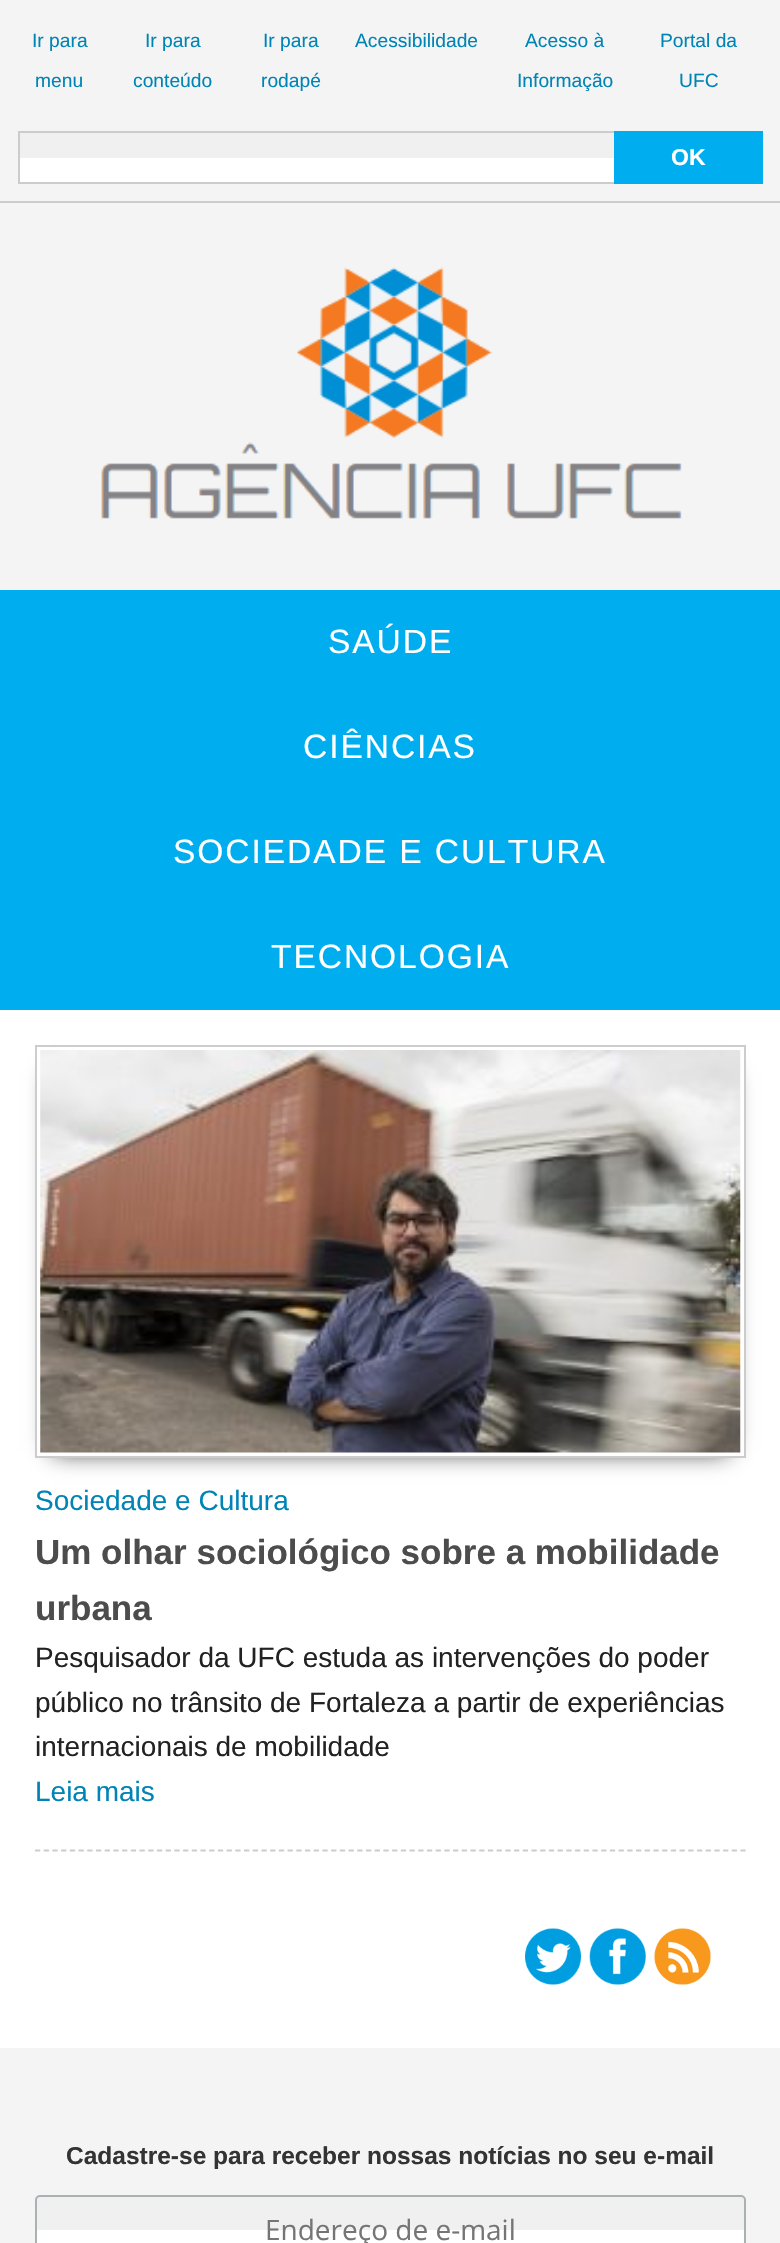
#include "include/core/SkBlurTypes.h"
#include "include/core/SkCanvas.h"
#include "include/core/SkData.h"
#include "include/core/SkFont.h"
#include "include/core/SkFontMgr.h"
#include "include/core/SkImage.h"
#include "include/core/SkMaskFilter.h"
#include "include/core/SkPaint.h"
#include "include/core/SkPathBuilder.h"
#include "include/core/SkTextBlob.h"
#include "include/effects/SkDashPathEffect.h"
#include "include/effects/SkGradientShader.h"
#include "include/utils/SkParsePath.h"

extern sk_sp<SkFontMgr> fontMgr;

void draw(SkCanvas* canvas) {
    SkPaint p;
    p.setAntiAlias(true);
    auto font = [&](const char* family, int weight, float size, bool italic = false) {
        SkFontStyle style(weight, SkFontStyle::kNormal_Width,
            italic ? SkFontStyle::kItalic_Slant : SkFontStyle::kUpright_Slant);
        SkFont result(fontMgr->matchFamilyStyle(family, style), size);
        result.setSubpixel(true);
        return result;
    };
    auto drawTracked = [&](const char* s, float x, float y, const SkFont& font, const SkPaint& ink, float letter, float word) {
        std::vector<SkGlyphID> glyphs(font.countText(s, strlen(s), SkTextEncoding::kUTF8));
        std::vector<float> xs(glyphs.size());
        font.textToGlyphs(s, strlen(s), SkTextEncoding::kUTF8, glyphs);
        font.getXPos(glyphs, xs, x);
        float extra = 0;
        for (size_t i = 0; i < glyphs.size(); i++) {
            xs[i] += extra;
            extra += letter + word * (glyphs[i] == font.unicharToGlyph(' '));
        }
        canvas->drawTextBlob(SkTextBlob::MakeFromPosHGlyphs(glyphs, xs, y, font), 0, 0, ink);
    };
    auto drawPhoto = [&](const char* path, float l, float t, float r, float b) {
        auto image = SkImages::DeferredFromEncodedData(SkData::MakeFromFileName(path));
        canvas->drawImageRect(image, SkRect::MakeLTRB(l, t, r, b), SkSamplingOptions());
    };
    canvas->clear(0xFFF4F4F4);
    p.setColor(0xFFCCCCCC);
    canvas->drawRect(SkRect::MakeLTRB(0, 201, 780, 203), p);
    auto font1 = font("Liberation Sans", 400, 19.25f);
    p.setColor(0xFF0084B5);
    {
        const struct { const char* s; float x, y; } items[] = {
            {"Ir para", 32, 47},
            {"menu", 35, 87},
            {"Ir para", 145, 47},
            {"conteúdo", 133, 87},
            {"Ir para", 263, 47},
            {"rodapé", 261, 87},
            {"Acessibilidade", 355, 47},
            {"Acesso à", 525, 47},
            {"Informação", 517, 87},
            {"Portal da", 660, 47},
            {"UFC", 679, 87},
        };
        for (auto [s, x, y] : items) {
            canvas->drawString(s, x, y, font1, p);
        }
    }
    {
        const struct { float l, t, r, b; SkColor color; } items[] = {
            {20, 133, 614, 158, 0xFFF0F0F0},
            {20, 158, 614, 182, 0xFFFFFFFF},
            {18, 131, 614, 133, 0xFFCCCCCC},
            {18, 182, 614, 184, 0xFFCCCCCC},
            {18, 131, 20, 184, 0xFFCCCCCC},
            {614, 131, 763, 184, 0xFF00AEEF},
        };
        for (auto [l, t, r, b, color] : items) {
            p.setColor(color);
            canvas->drawRect(SkRect::MakeLTRB(l, t, r, b), p);
        }
    }
    auto font2 = font("Liberation Sans", 700, 23);
    p.setColor(0xFFFFFFFF);
    canvas->drawString("OK", 671, 165, font2, p);
    drawPhoto("media/1.png", 101, 267, 682, 519);
    p.setColor(0xFF00AEEF);
    canvas->drawRect(SkRect::MakeLTRB(0, 590, 780, 1010), p);
    auto font3 = font("Liberation Sans", 400, 33.6f);
    p.setColor(0xFFFFFFFF);
    {
        const struct { const char* s; float x, y; } items[] = {
            {"SAÚDE", 328, 653},
            {"CIÊNCIAS", 303, 758},
            {"SOCIEDADE E CULTURA", 173, 863},
            {"TECNOLOGIA", 271, 968},
        };
        for (auto [s, x, y] : items) {
            drawTracked(s, x, y, font3, p, 1.9f, 0);
        }
    }
    canvas->drawRect(SkRect::MakeLTRB(0, 1010, 780, 2048), p);
    p.setStyle(SkPaint::kStroke_Style);
    p.setStrokeWidth(1.8f);
    p.setColor(0xFFCCCCCC);
    p.setPathEffect(SkDashPathEffect::Make({{5.25f, 3.46f}}, 0));
    canvas->drawPath(SkPathBuilder().moveTo(35, 1850.5f).lineTo(745.5f, 1850.5f).detach(), p);
    p.setPathEffect(nullptr);
    canvas->save();
    canvas->clipPath(SkPathBuilder(SkPathFillType::kEvenOdd).moveTo(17, 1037).lineTo(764, 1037).lineTo(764, 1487).lineTo(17, 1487).close().moveTo(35, 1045).lineTo(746, 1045).lineTo(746, 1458).lineTo(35, 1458).close().detach(), true);
    p.setStyle(SkPaint::kFill_Style);
    p.setColor(0xFF0F0F0F);
    p.setMaskFilter(SkMaskFilter::MakeBlur(kNormal_SkBlurStyle, 11.5f));
    canvas->drawRect(SkRect::MakeLTRB(53, 1073, 728, 1451), p);
    p.setMaskFilter(nullptr);
    canvas->restore();
    p.setStyle(SkPaint::kStroke_Style);
    p.setStrokeWidth(2);
    p.setColor(0xFFCCCCCC);
    canvas->drawRect(SkRect::MakeLTRB(36, 1046, 745, 1457), p);
    drawPhoto("media/2.png", 40, 1050, 741, 1453);
    auto font4 = font("Liberation Sans", 400, 28);
    p.setStyle(SkPaint::kFill_Style);
    p.setColor(0xFF0084B5);
    canvas->drawString("Sociedade e Cultura", 35, 1510, font4, p);
    auto font5 = font("Liberation Sans", 700, 35);
    p.setColor(0xFF4C4C4C);
    canvas->drawString("Um olhar sociológico sobre a mobilidade", 35, 1564, font5, p);
    canvas->drawString("urbana", 35, 1620, font5, p);
    p.setColor(0xFF222222);
    {
        const struct { const char* s; float x, y; } items[] = {
            {"Pesquisador da UFC estuda as intervenções do poder", 35, 1667},
            {"público no trânsito de Fortaleza a partir de experiências", 35, 1712},
            {"internacionais de mobilidade", 35, 1756},
        };
        for (auto [s, x, y] : items) {
            canvas->drawString(s, x, y, font4, p);
        }
    }
    p.setColor(0xFF0084B5);
    canvas->drawString("Leia mais", 35, 1801, font4, p);
    drawPhoto("media/3.png", 525, 1928, 581, 1985);
    drawPhoto("media/4.png", 589, 1928, 646, 1985);
    drawPhoto("media/5.png", 654, 1928, 711, 1985);
    auto font6 = font("Liberation Sans", 700, 24.5f);
    p.setColor(0xFF333333);
    canvas->drawString("Cadastre-se para receber nossas notícias no seu e-mail", 66, 2164, font6, p);
    p.setColor(0xFFFFFFFF);
    canvas->drawRoundRect(SkRect::MakeLTRB(35, 2195, 746, 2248), 5, 5, p);
    canvas->save();
    canvas->clipPath(SkPathBuilder().moveTo(40, 2195).lineTo(741, 2195).cubicTo(744, 2195, 746, 2197, 746, 2200).lineTo(746, 2260).cubicTo(746, 2263, 744, 2265, 741, 2265).lineTo(40, 2265).cubicTo(37, 2265, 35, 2263, 35, 2260).lineTo(35, 2200).cubicTo(35, 2197, 37, 2195, 40, 2195).close().detach(), true);
    p.setColor(0xFFF0F0F0);
    canvas->drawRect(SkRect::MakeLTRB(35, 2196, 746, 2230), p);
    canvas->restore();
    p.setStyle(SkPaint::kStroke_Style);
    p.setColor(0xFFABB0B2);
    canvas->drawRoundRect(SkRect::MakeLTRB(36, 2196, 745, 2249), 4, 4, p);
    auto font7 = font("Open Sans", 400, 28);
    p.setStyle(SkPaint::kFill_Style);
    p.setColor(0xFF757575);
    canvas->drawString("Endereço de e-mail", 265, 2240, font7, p);
}
